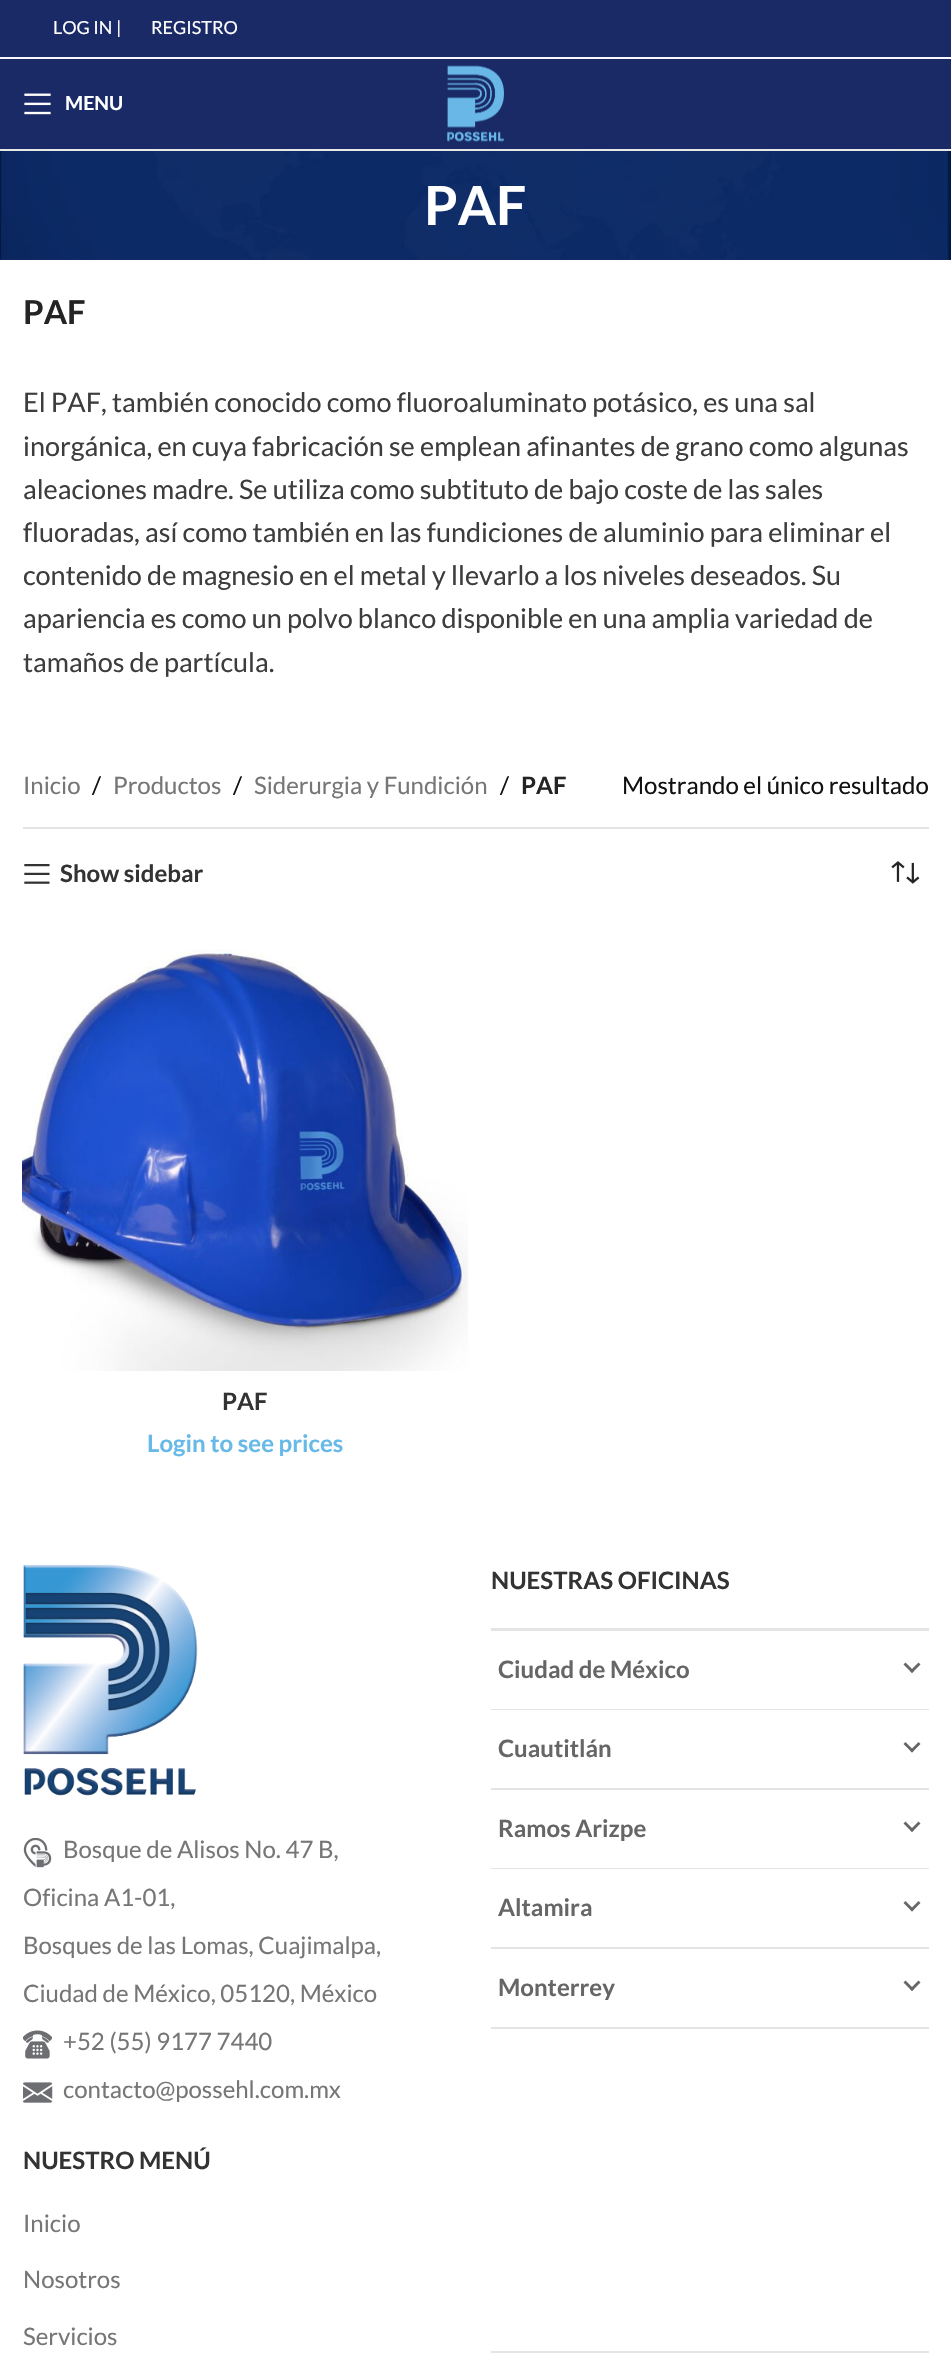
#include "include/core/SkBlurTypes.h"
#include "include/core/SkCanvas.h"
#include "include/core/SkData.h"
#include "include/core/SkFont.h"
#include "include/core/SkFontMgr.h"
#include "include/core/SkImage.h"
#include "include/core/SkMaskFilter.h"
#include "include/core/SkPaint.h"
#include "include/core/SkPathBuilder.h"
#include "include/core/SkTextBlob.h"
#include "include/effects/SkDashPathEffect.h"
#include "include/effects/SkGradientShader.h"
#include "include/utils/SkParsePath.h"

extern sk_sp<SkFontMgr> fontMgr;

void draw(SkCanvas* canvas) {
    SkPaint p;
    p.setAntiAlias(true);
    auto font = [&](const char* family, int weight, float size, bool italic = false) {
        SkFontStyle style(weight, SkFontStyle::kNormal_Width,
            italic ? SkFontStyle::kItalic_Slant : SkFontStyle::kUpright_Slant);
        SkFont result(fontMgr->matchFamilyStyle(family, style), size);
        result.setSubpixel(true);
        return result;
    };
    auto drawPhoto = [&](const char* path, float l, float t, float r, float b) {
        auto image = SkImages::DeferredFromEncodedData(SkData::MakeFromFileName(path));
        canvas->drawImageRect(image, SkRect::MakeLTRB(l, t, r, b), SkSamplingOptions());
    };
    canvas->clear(0xFFFFFFFF);
    p.setColor(0xFF192A67);
    canvas->drawRect(SkRect::MakeLTRB(0, 0, 951, 57), p);
    p.setColor(0xFFF8F8FF);
    canvas->drawRect(SkRect::MakeLTRB(0, 57, 951, 59), p);
    auto font1 = font("Lato", 400, 18);
    p.setColor(0xFFFFFFFF);
    canvas->drawString("LOG IN |", 53, 34, font1, p);
    canvas->drawString("REGISTRO", 151, 34, font1, p);
    p.setColor(0xFF192A67);
    canvas->drawRect(SkRect::MakeLTRB(0, 59, 951, 149), p);
    p.setColor(0xFFE8E8E8);
    canvas->drawRect(SkRect::MakeLTRB(0, 149, 951, 151), p);
    drawPhoto("media/1.png", 24, 93, 51, 115);
    auto font2 = font("Lato", 700, 19.5f);
    p.setColor(0xFFFFFFFF);
    canvas->drawString("MENU", 65, 110, font2, p);
    drawPhoto("media/2.png", 447, 65, 504, 142);
    p.setColor(0xFF192A67);
    canvas->drawRect(SkRect::MakeLTRB(0, 259, 951, 260), p);
    drawPhoto("media/3.png", 0, 151, 951, 260);
    auto font3 = font("Lato", 700, 54);
    p.setColor(0xFFFFFFFF);
    canvas->drawString("PAF", 424, 225, font3, p);
    auto font4 = font("Lato", 700, 33);
    p.setColor(0xFF242424);
    canvas->drawString("PAF", 23, 324, font4, p);
    auto font5 = font("Lato", 400, 27);
    p.setColor(0xFF3D3D3D);
    {
        const struct { const char* s; float x, y; } items[] = {
            {"El PAF, también conocido como fluoroaluminato potásico, es una sal", 23, 412},
            {"inorgánica, en cuya fabricación se emplean afinantes de grano como algunas", 23, 456},
            {"aleaciones madre. Se utiliza como subtituto de bajo coste de las sales", 23, 499},
            {"fluoradas, así como también en las fundiciones de aluminio para eliminar el", 23, 542},
            {"contenido de magnesio en el metal y llevarlo a los niveles deseados. Su", 23, 585},
            {"apariencia es como un polvo blanco disponible en una amplia variedad de", 23, 628},
            {"tamaños de partícula.", 23, 672},
        };
        for (auto [s, x, y] : items) {
            canvas->drawString(s, x, y, font5, p);
        }
    }
    p.setColor(0xFFE4E4E4);
    canvas->drawRect(SkRect::MakeLTRB(23, 827, 929, 829), p);
    auto font6 = font("Lato", 400, 24);
    p.setColor(0xFF767676);
    canvas->drawString("Inicio", 23, 794, font6, p);
    p.setColor(0xFF111111);
    canvas->drawString("/", 92, 794, font6, p);
    p.setColor(0xFF767676);
    canvas->drawString("Productos", 113, 794, font6, p);
    p.setColor(0xFF111111);
    canvas->drawString("/", 233, 794, font6, p);
    p.setColor(0xFF767676);
    canvas->drawString("Siderurgia y Fundición", 254, 794, font6, p);
    p.setColor(0xFF111111);
    canvas->drawString("/", 500, 794, font6, p);
    auto font7 = font("Lato", 700, 24);
    p.setColor(0xFF242424);
    canvas->drawString("PAF", 521, 794, font7, p);
    p.setColor(0xFF111111);
    canvas->drawString("Mostrando el único resultado", 622, 794, font6, p);
    drawPhoto("media/4.png", 24, 864, 50, 884);
    p.setColor(0xFF333333);
    canvas->drawString("Show sidebar", 60, 882, font7, p);
    drawPhoto("media/5.png", 891, 861, 920, 884);
    drawPhoto("media/6.png", 22, 949, 468, 1371);
    canvas->drawString("PAF", 222, 1410, font7, p);
    p.setColor(0xFF67B9E8);
    canvas->drawString("Login to see prices", 147, 1452, font7, p);
    drawPhoto("media/7.png", 23, 1564, 198, 1796);
    drawPhoto("media/8.png", 23, 1838, 52, 1868);
    p.setColor(0xFF767676);
    {
        const struct { const char* s; float x, y; } items[] = {
            {"Bosque de Alisos No. 47 B,", 63, 1858},
            {"Oficina A1-01,", 23, 1906},
            {"Bosques de las Lomas, Cuajimalpa,", 23, 1954},
            {"Ciudad de México, 05120, México", 23, 2002},
        };
        for (auto [s, x, y] : items) {
            canvas->drawString(s, x, y, font6, p);
        }
    }
    drawPhoto("media/9.png", 23, 2030, 53, 2059);
    canvas->drawString("+52 (55) 9177 7440", 63, 2050, font6, p);
    drawPhoto("media/10.png", 23, 2082, 53, 2103);
    canvas->drawString("contacto@possehl.com.mx", 63, 2098, font6, p);
    p.setColor(0xFF333333);
    canvas->drawString("NUESTRAS OFICINAS", 491, 1589, font7, p);
    p.setColor(0xFFE4E4E4);
    canvas->drawRect(SkRect::MakeLTRB(491, 1628, 929, 1631), p);
    canvas->drawRect(SkRect::MakeLTRB(491, 1709, 929, 1710), p);
    p.setColor(0xFF666666);
    canvas->drawString("Ciudad de México", 498, 1678, font7, p);
    canvas->drawPath(SkPathBuilder().moveTo(918.5f, 1662.5f).lineTo(920.5f, 1664.5f).lineTo(912, 1673).lineTo(910, 1671).close().detach(), p);
    canvas->drawPath(SkPathBuilder().moveTo(905.5f, 1662.5f).lineTo(914, 1671).lineTo(912, 1673).lineTo(903.5f, 1664.5f).close().detach(), p);
    p.setColor(0xFFE4E4E4);
    canvas->drawRect(SkRect::MakeLTRB(491, 1788, 929, 1790), p);
    p.setColor(0xFF666666);
    canvas->drawString("Cuautitlán", 498, 1757, font7, p);
    canvas->drawPath(SkPathBuilder().moveTo(918.5f, 1742).lineTo(920.5f, 1744).lineTo(912, 1752.5f).lineTo(910, 1750.5f).close().detach(), p);
    canvas->drawPath(SkPathBuilder().moveTo(905.5f, 1742).lineTo(914, 1750.5f).lineTo(912, 1752.5f).lineTo(903.5f, 1744).close().detach(), p);
    p.setColor(0xFFE4E4E4);
    canvas->drawRect(SkRect::MakeLTRB(491, 1868, 929, 1869), p);
    p.setColor(0xFF666666);
    canvas->drawString("Ramos Arizpe", 498, 1837, font7, p);
    canvas->drawPath(SkPathBuilder().moveTo(918.5f, 1821.5f).lineTo(920.5f, 1823.5f).lineTo(912, 1832).lineTo(910, 1830).close().detach(), p);
    canvas->drawPath(SkPathBuilder().moveTo(905.5f, 1821.5f).lineTo(914, 1830).lineTo(912, 1832).lineTo(903.5f, 1823.5f).close().detach(), p);
    p.setColor(0xFFE4E4E4);
    canvas->drawRect(SkRect::MakeLTRB(491, 1947, 929, 1949), p);
    p.setColor(0xFF666666);
    canvas->drawString("Altamira", 498, 1916, font7, p);
    canvas->drawPath(SkPathBuilder().moveTo(918.5f, 1901).lineTo(920.5f, 1903).lineTo(912, 1911.5f).lineTo(910, 1909.5f).close().detach(), p);
    canvas->drawPath(SkPathBuilder().moveTo(905.5f, 1901).lineTo(914, 1909.5f).lineTo(912, 1911.5f).lineTo(903.5f, 1903).close().detach(), p);
    p.setColor(0xFFE4E4E4);
    canvas->drawRect(SkRect::MakeLTRB(491, 2027, 929, 2029), p);
    p.setColor(0xFF666666);
    canvas->drawString("Monterrey", 498, 1996, font7, p);
    canvas->drawPath(SkPathBuilder().moveTo(918.5f, 1980.5f).lineTo(920.5f, 1982.5f).lineTo(912, 1991).lineTo(910, 1989).close().detach(), p);
    canvas->drawPath(SkPathBuilder().moveTo(905.5f, 1980.5f).lineTo(914, 1989).lineTo(912, 1991).lineTo(903.5f, 1982.5f).close().detach(), p);
    p.setColor(0xFF333333);
    canvas->drawString("NUESTRO MENÚ", 23, 2169, font7, p);
    p.setColor(0xFF767676);
    {
        const struct { const char* s; float x, y; } items[] = {
            {"Inicio", 23, 2232},
            {"Nosotros", 23, 2288},
            {"Servicios", 23, 2345},
        };
        for (auto [s, x, y] : items) {
            canvas->drawString(s, x, y, font6, p);
        }
    }
    p.setColor(0xFFE4E4E4);
    canvas->drawRect(SkRect::MakeLTRB(491, 2351, 929, 2353), p);
}
